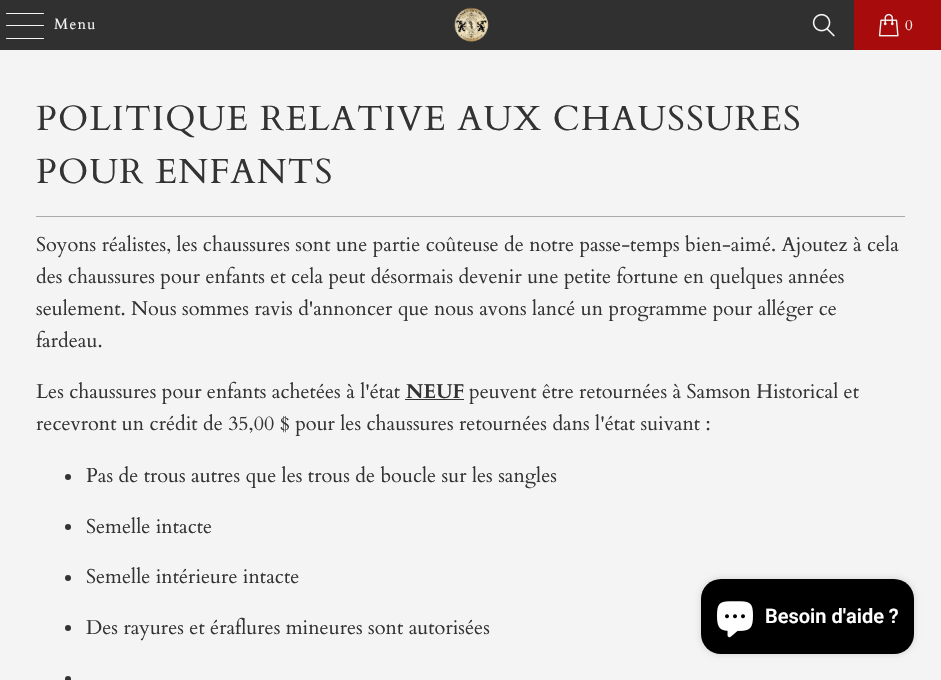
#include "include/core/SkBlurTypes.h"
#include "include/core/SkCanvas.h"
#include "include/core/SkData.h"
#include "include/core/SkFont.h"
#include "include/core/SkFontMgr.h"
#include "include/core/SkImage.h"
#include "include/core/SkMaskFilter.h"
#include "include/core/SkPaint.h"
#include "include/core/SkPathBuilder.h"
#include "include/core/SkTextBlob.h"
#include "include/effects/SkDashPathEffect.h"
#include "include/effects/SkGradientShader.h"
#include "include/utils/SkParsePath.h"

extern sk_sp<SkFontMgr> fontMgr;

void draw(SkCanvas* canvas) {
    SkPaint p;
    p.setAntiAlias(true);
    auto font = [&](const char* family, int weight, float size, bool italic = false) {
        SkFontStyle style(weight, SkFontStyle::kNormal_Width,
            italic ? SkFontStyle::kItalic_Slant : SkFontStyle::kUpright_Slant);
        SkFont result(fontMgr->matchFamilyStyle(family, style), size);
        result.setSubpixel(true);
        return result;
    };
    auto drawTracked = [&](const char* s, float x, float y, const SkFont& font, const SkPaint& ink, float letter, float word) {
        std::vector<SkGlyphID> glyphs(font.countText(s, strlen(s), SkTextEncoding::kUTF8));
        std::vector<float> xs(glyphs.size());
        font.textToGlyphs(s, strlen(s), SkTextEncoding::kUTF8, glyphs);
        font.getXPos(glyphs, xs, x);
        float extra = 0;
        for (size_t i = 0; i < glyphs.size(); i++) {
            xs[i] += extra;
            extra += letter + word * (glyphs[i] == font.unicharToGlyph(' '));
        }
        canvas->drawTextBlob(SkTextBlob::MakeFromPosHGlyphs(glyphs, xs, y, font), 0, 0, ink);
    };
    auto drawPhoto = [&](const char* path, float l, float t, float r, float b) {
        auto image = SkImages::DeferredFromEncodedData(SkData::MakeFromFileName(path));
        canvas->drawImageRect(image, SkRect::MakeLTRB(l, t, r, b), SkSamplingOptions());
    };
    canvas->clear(0xFFF4F4F4);
    p.setColor(0xFF303030);
    canvas->drawRect(SkRect::MakeLTRB(0, 0, 854, 50), p);
    p.setColor(0xFFF4F4F4);
    canvas->drawRoundRect(SkRect::MakeLTRB(6, 13, 44, 14), 0.5f, 0.5f, p);
    canvas->drawRoundRect(SkRect::MakeLTRB(6, 25, 44, 26), 0.5f, 0.5f, p);
    canvas->drawRoundRect(SkRect::MakeLTRB(6, 38, 44, 39), 0.5f, 0.5f, p);
    auto font1 = font("Cardo", 400, 15);
    drawTracked("Menu", 54, 29, font1, p, 1.25f, 0);
    drawPhoto("media/1.png", 454, 7, 489, 42);
    drawPhoto("media/2.png", 812, 13, 835, 37);
    p.setColor(0xFFA70B0B);
    canvas->drawRect(SkRect::MakeLTRB(854, 0, 941, 50), p);
    drawPhoto("media/3.png", 878, 13, 899, 37);
    p.setColor(0xFFF4F4F4);
    drawTracked("0", 905, 30, font1, p, 1.25f, 0);
    auto font2 = font("Cardo", 400, 35);
    p.setColor(0xFF333333);
    drawTracked("POLITIQUE RELATIVE AUX CHAUSSURES", 36, 130, font2, p, 1.25f, 0);
    drawTracked("POUR ENFANTS", 36, 183, font2, p, 1.25f, 0);
    p.setColor(0xFFAAAAAA);
    canvas->drawRect(SkRect::MakeLTRB(36, 216, 905, 217), p);
    auto font3 = font("Cardo", 400, 20);
    p.setColor(0xFF333333);
    {
        const struct { const char* s; float x, y; } items[] = {
            {"Soyons réalistes, les chaussures sont une partie coûteuse de notre passe-temps bien-aimé. Ajoutez à cela", 36, 251},
            {"des chaussures pour enfants et cela peut désormais devenir une petite fortune en quelques années", 36, 283},
            {"seulement. Nous sommes ravis d'annoncer que nous avons lancé un programme pour alléger ce", 36, 315},
            {"fardeau.", 36, 347},
            {"Les chaussures pour enfants achetées à l'état", 36, 398},
        };
        for (auto [s, x, y] : items) {
            canvas->drawString(s, x, y, font3, p);
        }
    }
    auto font4 = font("Cardo", 700, 20);
    canvas->drawString("NEUF", 406, 398, font4, p);
    canvas->drawRect(SkRect::MakeLTRB(405, 399, 464, 400), p);
    canvas->drawString("peuvent être retournées à Samson Historical et", 469, 398, font3, p);
    canvas->drawString("recevront un crédit de 35,00 $ pour les chaussures retournées dans l'état suivant :", 36, 430, font3, p);
    canvas->drawCircle(68, 477, 3, p);
    canvas->drawString("Pas de trous autres que les trous de boucle sur les sangles", 86, 482, font3, p);
    canvas->drawCircle(68, 527, 3, p);
    canvas->drawString("Semelle intacte", 86, 533, font3, p);
    canvas->drawCircle(68, 578, 3, p);
    canvas->drawString("Semelle intérieure intacte", 86, 583, font3, p);
    canvas->drawCircle(68, 628, 3, p);
    canvas->drawString("Des rayures et éraflures mineures sont autorisées", 86, 634, font3, p);
    canvas->drawRoundRect(SkRect::MakeLTRB(65, 676, 71, 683), 3, 3, p);
    p.setColor(0x26000000);
    p.setMaskFilter(SkMaskFilter::MakeBlur(kNormal_SkBlurStyle, 3));
    canvas->drawRoundRect(SkRect::MakeLTRB(701, 579, 914, 654), 20, 20, p);
    p.setMaskFilter(nullptr);
    p.setColor(0xFF000000);
    canvas->drawRoundRect(SkRect::MakeLTRB(701, 579, 914, 654), 20, 20, p);
    drawPhoto("media/4.png", 717, 601, 753, 638);
    auto font5 = font("Roboto", 600, 20);
    p.setColor(0xFFFFFFFF);
    canvas->drawString("Besoin d'aide ?", 765, 623, font5, p);
}
